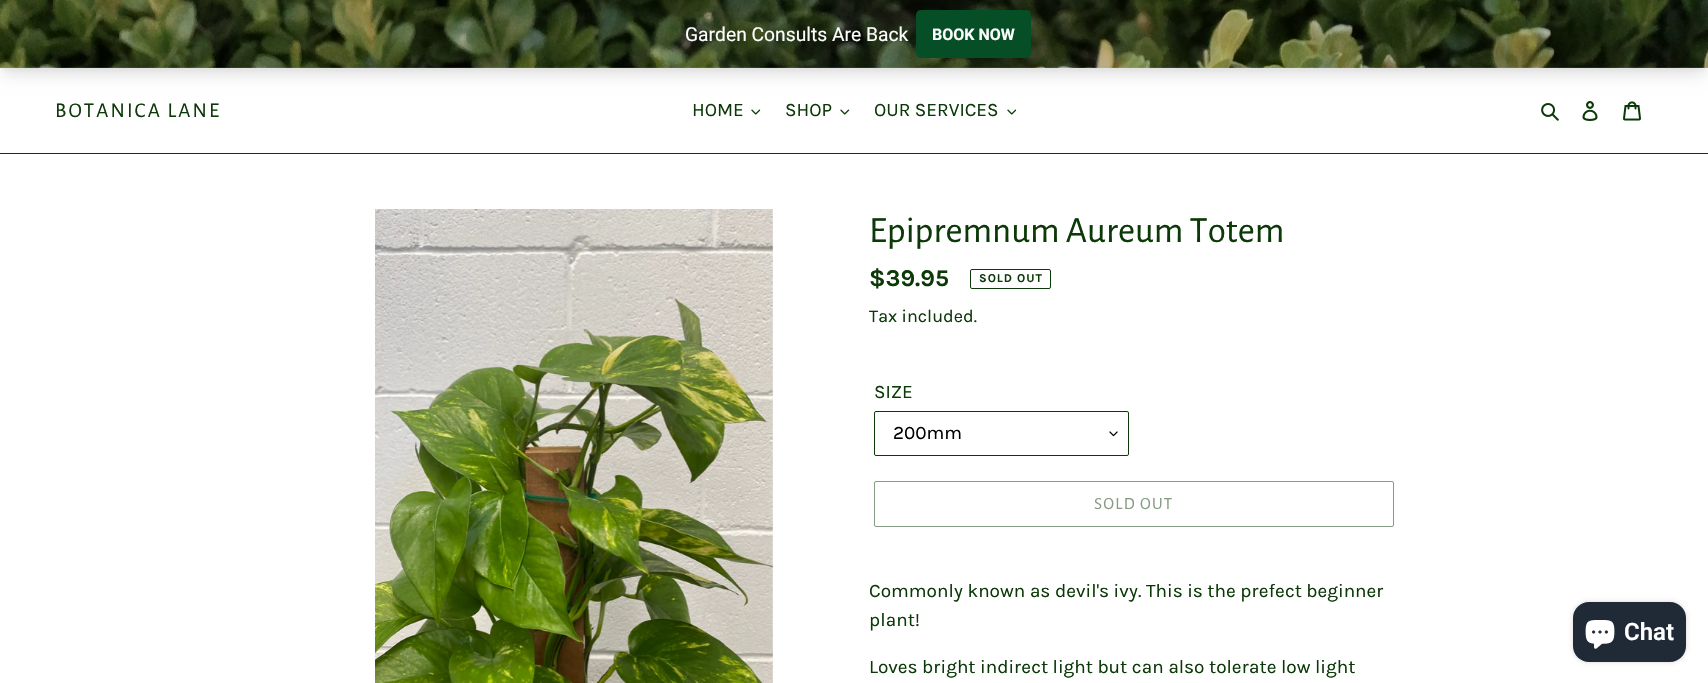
#include "include/core/SkBlurTypes.h"
#include "include/core/SkCanvas.h"
#include "include/core/SkData.h"
#include "include/core/SkFont.h"
#include "include/core/SkFontMgr.h"
#include "include/core/SkImage.h"
#include "include/core/SkMaskFilter.h"
#include "include/core/SkPaint.h"
#include "include/core/SkPathBuilder.h"
#include "include/core/SkTextBlob.h"
#include "include/effects/SkDashPathEffect.h"
#include "include/effects/SkGradientShader.h"
#include "include/utils/SkParsePath.h"

extern sk_sp<SkFontMgr> fontMgr;

void draw(SkCanvas* canvas) {
    SkPaint p;
    p.setAntiAlias(true);
    auto font = [&](const char* family, int weight, float size, bool italic = false) {
        SkFontStyle style(weight, SkFontStyle::kNormal_Width,
            italic ? SkFontStyle::kItalic_Slant : SkFontStyle::kUpright_Slant);
        SkFont result(fontMgr->matchFamilyStyle(family, style), size);
        result.setSubpixel(true);
        return result;
    };
    auto drawTracked = [&](const char* s, float x, float y, const SkFont& font, const SkPaint& ink, float letter, float word) {
        std::vector<SkGlyphID> glyphs(font.countText(s, strlen(s), SkTextEncoding::kUTF8));
        std::vector<float> xs(glyphs.size());
        font.textToGlyphs(s, strlen(s), SkTextEncoding::kUTF8, glyphs);
        font.getXPos(glyphs, xs, x);
        float extra = 0;
        for (size_t i = 0; i < glyphs.size(); i++) {
            xs[i] += extra;
            extra += letter + word * (glyphs[i] == font.unicharToGlyph(' '));
        }
        canvas->drawTextBlob(SkTextBlob::MakeFromPosHGlyphs(glyphs, xs, y, font), 0, 0, ink);
    };
    auto drawPhoto = [&](const char* path, float l, float t, float r, float b) {
        auto image = SkImages::DeferredFromEncodedData(SkData::MakeFromFileName(path));
        canvas->drawImageRect(image, SkRect::MakeLTRB(l, t, r, b), SkSamplingOptions());
    };
    canvas->clear(0xFFFFFFFF);
    p.setColor(0x0D000000);
    p.setMaskFilter(SkMaskFilter::MakeBlur(kNormal_SkBlurStyle, 3));
    canvas->drawRect(SkRect::MakeLTRB(2, 6, 1706, 70), p);
    p.setMaskFilter(nullptr);
    p.setColor(0x1A000000);
    p.setMaskFilter(SkMaskFilter::MakeBlur(kNormal_SkBlurStyle, 7.5f));
    canvas->drawRect(SkRect::MakeLTRB(3, 13, 1705, 75), p);
    p.setMaskFilter(nullptr);
    drawPhoto("media/1.png", 0, 0, 1708, 68);
    auto font1 = font("Roboto", 400, 19.25f);
    p.setColor(0xFFFFFFFF);
    canvas->drawString("Garden Consults Are Back", 685, 41, font1, p);
    p.setColor(0xFF064F26);
    canvas->drawRoundRect(SkRect::MakeLTRB(916, 10, 1031, 58), 5, 5, p);
    auto font2 = font("Roboto", 700, 16);
    p.setColor(0xFFFFFFFF);
    canvas->drawString("BOOK NOW", 932, 40, font2, p);
    p.setColor(0xFF0C3908);
    canvas->drawRect(SkRect::MakeLTRB(0, 153, 1708, 154), p);
    auto font3 = font("Alegreya Sans", 400, 21);
    drawTracked("BOTANICA LANE", 55, 117, font3, p, 2.1f, 0);
    auto font4 = font("Karla", 400, 19);
    canvas->drawString("HOME", 692, 116, font4, p);
    drawPhoto("media/2.png", 751, 109, 761, 115);
    canvas->drawString("SHOP", 785, 116, font4, p);
    drawPhoto("media/2.png", 840, 109, 850, 115);
    canvas->drawString("OUR SERVICES", 874, 116, font4, p);
    drawPhoto("media/3.png", 1007, 109, 1016, 115);
    drawPhoto("media/4.png", 1541, 103, 1559, 121);
    drawPhoto("media/5.png", 1582, 101, 1598, 121);
    drawPhoto("media/6.png", 1623, 101, 1641, 121);
    drawPhoto("media/7.png", 375, 209, 773, 683);
    auto font5 = font("Alegreya Sans", 400, 37);
    canvas->drawString("Epipremnum Aureum Totem", 869, 242, font5, p);
    auto font6 = font("Karla", 700, 24);
    canvas->drawString("$39.95", 869, 286, font6, p);
    p.setStyle(SkPaint::kStroke_Style);
    p.setStrokeWidth(1);
    canvas->drawRoundRect(SkRect::MakeLTRB(970.5f, 269.5f, 1050.5f, 288.5f), 1.5f, 1.5f, p);
    auto font7 = font("Karla", 700, 12);
    p.setStyle(SkPaint::kFill_Style);
    drawTracked("SOLD OUT", 979, 282, font7, p, 1, 0);
    auto font8 = font("Karla", 400, 18);
    canvas->drawString("Tax included.", 869, 322, font8, p);
    canvas->drawString("SIZE", 874, 398, font4, p);
    drawPhoto("media/8.png", 1109, 431, 1118, 437);
    p.setStyle(SkPaint::kStroke_Style);
    canvas->drawRoundRect(SkRect::MakeLTRB(874.5f, 411.5f, 1128.5f, 455.5f), 1.5f, 1.5f, p);
    p.setStyle(SkPaint::kFill_Style);
    p.setColor(0xFF000000);
    canvas->drawString("200mm", 893, 439, font4, p);
    p.setStyle(SkPaint::kStroke_Style);
    p.setColor(0xFF869C84);
    canvas->drawRoundRect(SkRect::MakeLTRB(874.5f, 481.5f, 1393.5f, 526.5f), 1.5f, 1.5f, p);
    auto font9 = font("Alegreya Sans", 400, 17);
    p.setStyle(SkPaint::kFill_Style);
    drawTracked("SOLD OUT", 1094, 509, font9, p, 1.25f, 0);
    p.setColor(0xFF0C3908);
    {
        const struct { const char* s; float x, y; } items[] = {
            {"Commonly known as devil's ivy. This is the prefect beginner", 869, 597},
            {"plant!", 869, 626},
            {"Loves bright indirect light but can also tolerate low light", 869, 673},
        };
        for (auto [s, x, y] : items) {
            canvas->drawString(s, x, y, font4, p);
        }
    }
    p.setColor(0x26000000);
    p.setMaskFilter(SkMaskFilter::MakeBlur(kNormal_SkBlurStyle, 2.5f));
    canvas->drawRoundRect(SkRect::MakeLTRB(1573, 602, 1686, 662), 16, 16, p);
    p.setMaskFilter(nullptr);
    p.setColor(0xFF202A36);
    canvas->drawRoundRect(SkRect::MakeLTRB(1573, 602, 1686, 662), 16, 16, p);
    drawPhoto("media/9.png", 1585, 620, 1615, 649);
    auto font10 = font("Roboto", 600, 24);
    p.setColor(0xFFFFFFFF);
    canvas->drawString("Chat", 1624, 640, font10, p);
}
